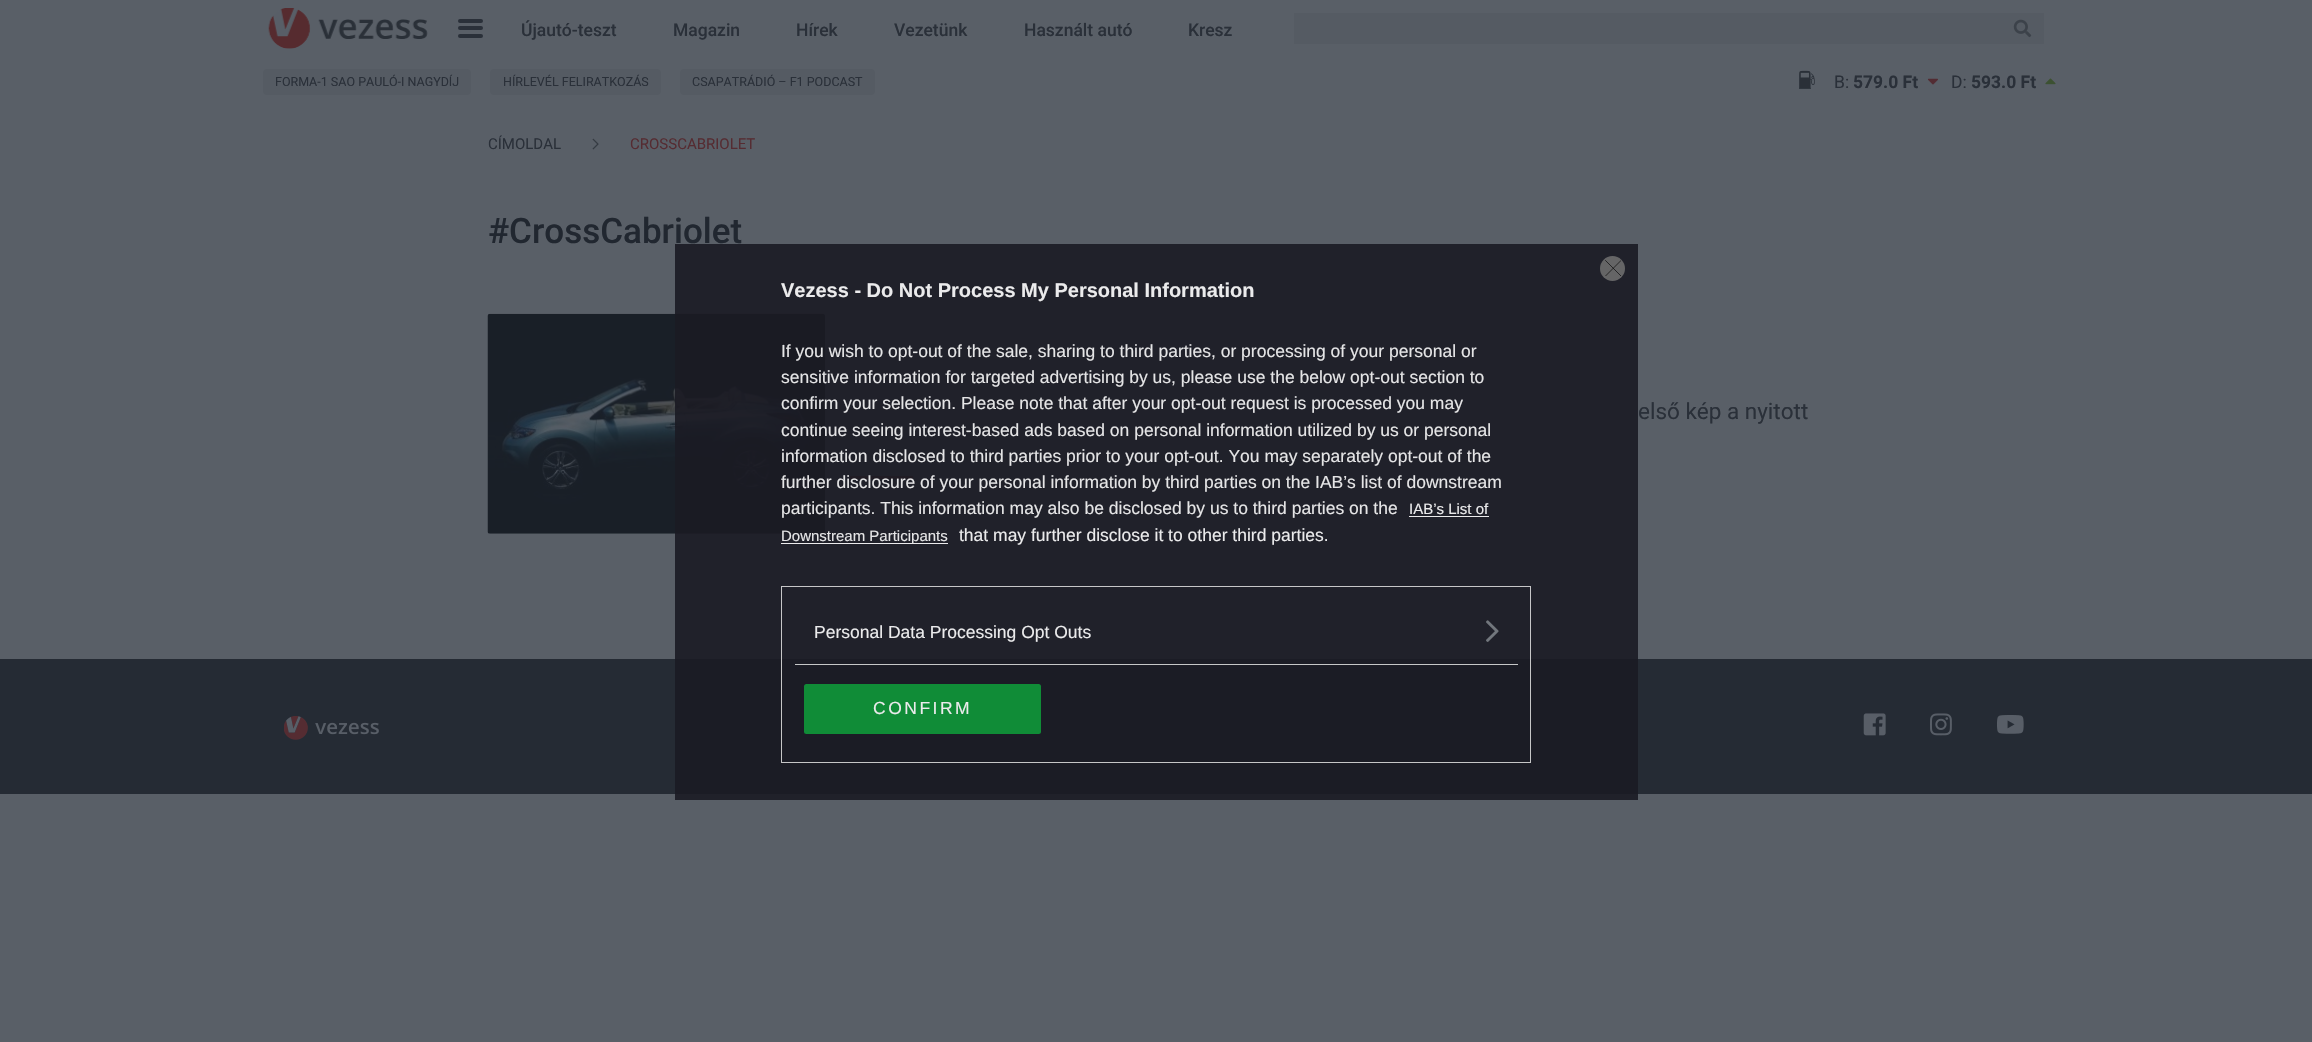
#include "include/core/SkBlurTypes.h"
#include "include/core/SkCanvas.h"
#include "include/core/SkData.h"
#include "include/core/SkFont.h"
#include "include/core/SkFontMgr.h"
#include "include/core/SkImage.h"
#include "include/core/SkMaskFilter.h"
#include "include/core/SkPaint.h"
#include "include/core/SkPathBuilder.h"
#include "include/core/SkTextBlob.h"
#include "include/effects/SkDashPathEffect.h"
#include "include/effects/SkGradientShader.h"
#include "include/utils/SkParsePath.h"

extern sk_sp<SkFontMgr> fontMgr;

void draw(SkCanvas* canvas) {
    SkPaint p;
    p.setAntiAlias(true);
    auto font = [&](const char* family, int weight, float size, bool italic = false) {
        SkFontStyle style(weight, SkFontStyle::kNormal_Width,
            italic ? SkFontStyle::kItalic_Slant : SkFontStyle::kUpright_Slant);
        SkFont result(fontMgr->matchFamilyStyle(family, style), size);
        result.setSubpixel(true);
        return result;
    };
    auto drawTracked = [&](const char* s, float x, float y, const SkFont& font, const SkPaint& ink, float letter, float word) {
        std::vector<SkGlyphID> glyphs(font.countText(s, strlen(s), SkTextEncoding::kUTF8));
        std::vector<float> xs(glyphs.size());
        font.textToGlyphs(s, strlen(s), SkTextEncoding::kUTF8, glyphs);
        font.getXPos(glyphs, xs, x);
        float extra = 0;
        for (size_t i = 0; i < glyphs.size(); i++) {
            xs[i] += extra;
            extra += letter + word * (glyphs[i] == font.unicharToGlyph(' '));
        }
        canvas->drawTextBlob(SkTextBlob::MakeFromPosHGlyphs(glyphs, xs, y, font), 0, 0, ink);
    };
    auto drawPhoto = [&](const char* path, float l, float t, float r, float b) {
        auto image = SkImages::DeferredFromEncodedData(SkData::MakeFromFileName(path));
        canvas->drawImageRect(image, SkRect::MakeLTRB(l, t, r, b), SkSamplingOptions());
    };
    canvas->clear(0xFF595F67);
    drawPhoto("media/1.png", 268, 8, 428, 49);
    p.setColor(0xFF2A3039);
    canvas->drawRoundRect(SkRect::MakeLTRB(458, 19, 483, 23), 2, 2, p);
    canvas->drawRoundRect(SkRect::MakeLTRB(458, 26, 483, 30), 2, 2, p);
    canvas->drawRoundRect(SkRect::MakeLTRB(458, 34, 483, 38), 2, 2, p);
    auto font1 = font("Roboto", 500, 17.5f);
    {
        const struct { const char* s; float x, y; } items[] = {
            {"Újautó-teszt", 521, 36},
            {"Magazin", 673, 36},
            {"Hírek", 796, 36},
            {"Vezetünk", 894, 36},
            {"Használt autó", 1024, 36},
            {"Kresz", 1188, 36},
        };
        for (auto [s, x, y] : items) {
            canvas->drawString(s, x, y, font1, p);
        }
    }
    p.setColor(0xFF555B63);
    canvas->drawRect(SkRect::MakeLTRB(1294, 13, 2044, 44), p);
    drawPhoto("media/2.png", 2013, 19, 2032, 38);
    canvas->drawRoundRect(SkRect::MakeLTRB(263, 69, 471, 95), 4, 4, p);
    auto font2 = font("Roboto", 400, 12.5f);
    p.setColor(0xFF2A3039);
    canvas->drawString("FORMA-1 SAO PAULÓ-I NAGYDÍJ", 275, 86, font2, p);
    p.setColor(0xFF555B63);
    canvas->drawRoundRect(SkRect::MakeLTRB(490, 69, 661, 95), 4, 4, p);
    p.setColor(0xFF2A3039);
    canvas->drawString("HÍRLEVÉL FELIRATKOZÁS", 503, 86, font2, p);
    p.setColor(0xFF555B63);
    canvas->drawRoundRect(SkRect::MakeLTRB(680, 69, 875, 95), 4, 4, p);
    p.setColor(0xFF2A3039);
    canvas->drawString("CSAPATRÁDIÓ – F1 PODCAST", 692, 86, font2, p);
    drawPhoto("media/3.png", 1799, 70, 1815, 89);
    auto font3 = font("Roboto", 400, 17.5f);
    canvas->drawString("B:", 1834, 88, font3, p);
    auto font4 = font("Roboto", 700, 17.5f);
    canvas->drawString("579.0 Ft", 1853, 88, font4, p);
    drawPhoto("media/4.png", 1927, 78, 1938, 85);
    canvas->drawString("D:", 1951, 88, font3, p);
    canvas->drawString("593.0 Ft", 1971, 88, font4, p);
    drawPhoto("media/5.png", 2045, 78, 2056, 85);
    auto font5 = font("Roboto", 400, 15);
    canvas->drawString("CÍMOLDAL", 488, 149, font5, p);
    drawPhoto("media/6.png", 592, 138, 599, 150);
    p.setColor(0xFF552C32);
    canvas->drawString("CROSSCABRIOLET", 630, 149, font5, p);
    auto font6 = font("Roboto", 500, 35);
    p.setColor(0xFF212730);
    canvas->drawString("#CrossCabriolet", 488, 243, font6, p);
    drawPhoto("media/8.png", 487, 313, 825, 534);
    {
        const struct { float l, t, r, b; SkColor color; } items[] = {
            {850, 476, 913, 479, 0xFF552C32},
            {0, 659, 2312, 794, 0xFF252B34},
            {675, 244, 1638, 800, 0xE6191922},
        };
        for (auto [l, t, r, b, color] : items) {
            p.setColor(color);
            canvas->drawRect(SkRect::MakeLTRB(l, t, r, b), p);
        }
    }
    p.setColor(0xFF656566);
    canvas->drawCircle(1612.5f, 268.5f, 12.5f, p);
    canvas->save();
    canvas->clipRect(SkRect::MakeLTRB(1605, 260, 1621, 276));
    p.setStyle(SkPaint::kStroke_Style);
    p.setStrokeWidth(0.7f);
    p.setStrokeCap(SkPaint::kRound_Cap);
    p.setStrokeJoin(SkPaint::kRound_Join);
    p.setColor(0xFF09090A);
    canvas->drawPath(SkPathBuilder().moveTo(1605.5f, 260.5f).lineTo(1621, 276).moveTo(1621, 260.5f).lineTo(1605.5f, 276).detach(), p);
    canvas->restore();
    auto font7 = font("Liberation Sans", 700, 20);
    p.setStyle(SkPaint::kFill_Style);
    p.setColor(0xFFEBEBEC);
    canvas->drawString("Vezess - Do Not Process My Personal Information", 781, 297, font7, p);
    auto font8 = font("Liberation Sans", 400, 17.5f);
    p.setColor(0xFFE5E5E6);
    {
        const struct { const char* s; float x, y; } items[] = {
            {"If you wish to opt-out of the sale, sharing to third parties, or processing of your personal or", 781, 357},
            {"sensitive information for targeted advertising by us, please use the below opt-out section to", 781, 383},
            {"confirm your selection. Please note that after your opt-out request is processed you may", 781, 409},
            {"continue seeing interest-based ads based on personal information utilized by us or personal", 781, 436},
            {"information disclosed to third parties prior to your opt-out. You may separately opt-out of the", 781, 462},
            {"further disclosure of your personal information by third parties on the IAB’s list of downstream", 781, 488},
            {"participants. This information may also be disclosed by us to third parties on the", 781, 514},
        };
        for (auto [s, x, y] : items) {
            canvas->drawString(s, x, y, font8, p);
        }
    }
    auto font9 = font("Liberation Sans", 400, 15);
    p.setColor(0xFFEBEBEC);
    canvas->drawString("IAB’s List of", 1409, 514, font9, p);
    canvas->drawRect(SkRect::MakeLTRB(1409, 516, 1489, 517), p);
    canvas->drawRect(SkRect::MakeLTRB(781, 543, 948, 544), p);
    p.setColor(0xFFE5E5E6);
    canvas->drawString("Downstream Participants", 781, 541, font9, p);
    p.setColor(0xFFEBEBEC);
    canvas->drawString("that may further disclose it to other third parties.", 959, 541, font8, p);
    p.setStyle(SkPaint::kStroke_Style);
    p.setStrokeWidth(1);
    p.setStrokeCap(SkPaint::kButt_Cap);
    p.setStrokeJoin(SkPaint::kMiter_Join);
    p.setColor(0xE6D8D8D8);
    canvas->drawRect(SkRect::MakeLTRB(781.5f, 586.5f, 1530.5f, 762.5f), p);
    p.setStyle(SkPaint::kFill_Style);
    p.setColor(0xFFC6C7C8);
    canvas->drawRect(SkRect::MakeLTRB(795, 664, 1518, 665), p);
    p.setColor(0xFFEBEBEC);
    canvas->drawString("Personal Data Processing Opt Outs", 814, 638, font8, p);
    drawPhoto("media/7.png", 1486, 620, 1499, 642);
    p.setColor(0xE60E9839);
    canvas->drawRoundRect(SkRect::MakeLTRB(804, 684, 1041, 734), 2.5f, 2.5f, p);
    p.setColor(0xFFEBEBEC);
    drawTracked("CONFIRM", 873, 714, font8, p, 2.5f, 0);
    auto font10 = font("Roboto", 400, 22.5f);
    p.setColor(0xFF2A3039);
    canvas->drawString("első kép a nyitott", 1638, 419, font10, p);
    drawPhoto("media/9.png", 284, 716, 379, 740);
    drawPhoto("media/10.png", 1863, 713, 1886, 736);
    drawPhoto("media/11.png", 1930, 713, 1952, 736);
    drawPhoto("media/12.png", 1997, 715, 2024, 734);
}
